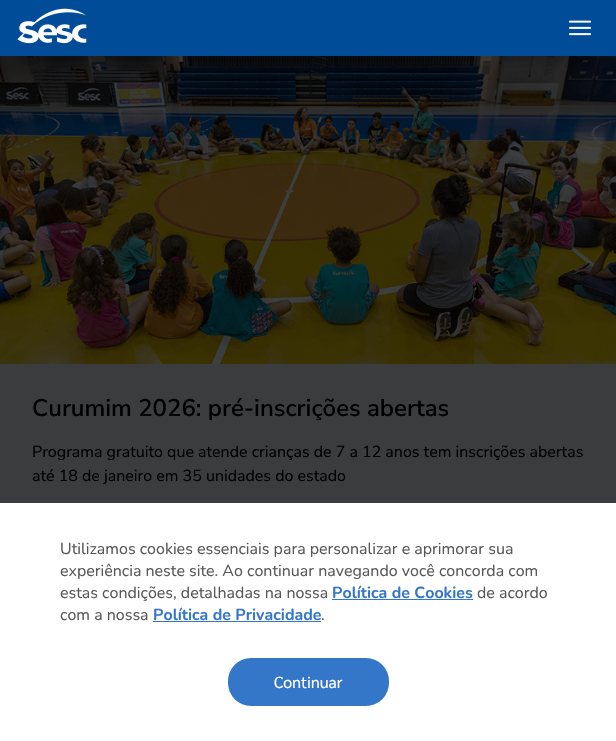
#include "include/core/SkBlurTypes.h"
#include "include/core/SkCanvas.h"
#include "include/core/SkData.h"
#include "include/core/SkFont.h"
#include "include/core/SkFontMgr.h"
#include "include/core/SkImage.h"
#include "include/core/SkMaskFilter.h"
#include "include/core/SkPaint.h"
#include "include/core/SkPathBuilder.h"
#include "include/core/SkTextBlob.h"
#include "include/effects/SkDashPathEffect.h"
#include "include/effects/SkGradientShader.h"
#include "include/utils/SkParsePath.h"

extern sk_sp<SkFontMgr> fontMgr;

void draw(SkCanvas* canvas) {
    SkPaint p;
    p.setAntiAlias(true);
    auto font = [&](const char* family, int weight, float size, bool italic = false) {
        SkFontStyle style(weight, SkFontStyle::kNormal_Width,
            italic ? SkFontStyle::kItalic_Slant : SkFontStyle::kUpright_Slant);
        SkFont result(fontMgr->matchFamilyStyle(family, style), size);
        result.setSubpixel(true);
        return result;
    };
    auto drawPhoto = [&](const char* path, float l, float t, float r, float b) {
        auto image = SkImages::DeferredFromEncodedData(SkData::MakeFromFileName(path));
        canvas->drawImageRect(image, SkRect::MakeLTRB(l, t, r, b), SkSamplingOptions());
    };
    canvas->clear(0xFF3B3C3D);
    p.setColor(0xFF004C99);
    canvas->drawRect(SkRect::MakeLTRB(0, 0, 616, 56), p);
    drawPhoto("media/1.png", 17, 8, 87, 44);
    drawPhoto("media/2.png", 569, 20, 591, 36);
    drawPhoto("media/3.png", 0, 56, 616, 364);
    canvas->save();
    canvas->clipRect(SkRect::MakeLTRB(32, 396, 584, 420));
    auto font1 = font("Nunito Sans", 600, 24);
    p.setColor(0xFF000000);
    canvas->drawString("Curumim 2026: pré-inscrições abertas", 32, 416, font1, p);
    canvas->restore();
    auto font2 = font("Nunito Sans", 400, 16);
    canvas->drawString("Programa gratuito que atende crianças de 7 a 12 anos tem inscrições abertas", 32, 457, font2, p);
    canvas->drawString("até 18 de janeiro em 35 unidades do estado", 32, 481, font2, p);
    p.setColor(0xFFFFFFFF);
    canvas->drawRect(SkRect::MakeLTRB(0, 503, 616, 741), p);
    auto font3 = font("Nunito", 400, 16);
    p.setColor(0xFF585858);
    {
        const struct { const char* s; float x, y; } items[] = {
            {"Utilizamos cookies essenciais para personalizar e aprimorar sua", 60, 554},
            {"experiência neste site. Ao continuar navegando você concorda com", 60, 576},
            {"estas condições, detalhadas na nossa", 60, 598},
        };
        for (auto [s, x, y] : items) {
            canvas->drawString(s, x, y, font3, p);
        }
    }
    auto font4 = font("Nunito", 700, 16);
    p.setColor(0xFF3477C8);
    canvas->drawString("Política de Cookies", 332, 598, font4, p);
    canvas->drawRect(SkRect::MakeLTRB(332, 599, 473, 600), p);
    p.setColor(0xFF585858);
    canvas->drawString("de acordo", 477, 598, font3, p);
    canvas->drawString("com a nossa", 60, 620, font3, p);
    p.setColor(0xFF3477C8);
    canvas->drawString("Política de Privacidade", 153, 620, font4, p);
    canvas->drawRect(SkRect::MakeLTRB(153, 621, 321, 622), p);
    p.setColor(0xFF585858);
    canvas->drawString(".", 321, 620, font3, p);
    p.setColor(0xFF3477C8);
    canvas->drawRoundRect(SkRect::MakeLTRB(228, 658, 389, 706), 23, 23, p);
    auto font5 = font("Sarabun", 400, 16);
    p.setColor(0xFFFFFFFF);
    canvas->drawString("Continuar", 274, 688, font5, p);
}
